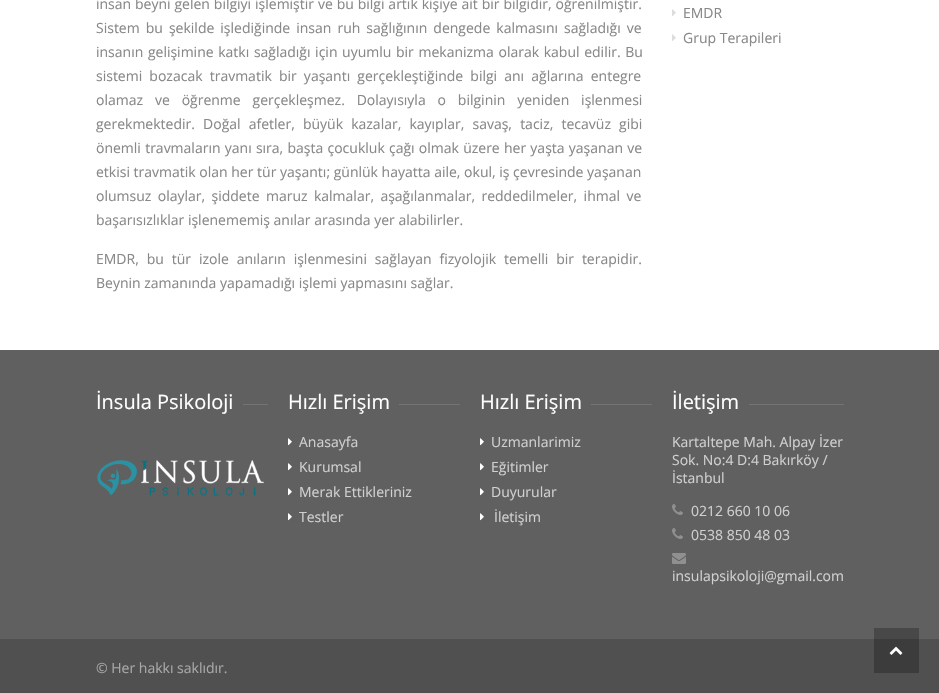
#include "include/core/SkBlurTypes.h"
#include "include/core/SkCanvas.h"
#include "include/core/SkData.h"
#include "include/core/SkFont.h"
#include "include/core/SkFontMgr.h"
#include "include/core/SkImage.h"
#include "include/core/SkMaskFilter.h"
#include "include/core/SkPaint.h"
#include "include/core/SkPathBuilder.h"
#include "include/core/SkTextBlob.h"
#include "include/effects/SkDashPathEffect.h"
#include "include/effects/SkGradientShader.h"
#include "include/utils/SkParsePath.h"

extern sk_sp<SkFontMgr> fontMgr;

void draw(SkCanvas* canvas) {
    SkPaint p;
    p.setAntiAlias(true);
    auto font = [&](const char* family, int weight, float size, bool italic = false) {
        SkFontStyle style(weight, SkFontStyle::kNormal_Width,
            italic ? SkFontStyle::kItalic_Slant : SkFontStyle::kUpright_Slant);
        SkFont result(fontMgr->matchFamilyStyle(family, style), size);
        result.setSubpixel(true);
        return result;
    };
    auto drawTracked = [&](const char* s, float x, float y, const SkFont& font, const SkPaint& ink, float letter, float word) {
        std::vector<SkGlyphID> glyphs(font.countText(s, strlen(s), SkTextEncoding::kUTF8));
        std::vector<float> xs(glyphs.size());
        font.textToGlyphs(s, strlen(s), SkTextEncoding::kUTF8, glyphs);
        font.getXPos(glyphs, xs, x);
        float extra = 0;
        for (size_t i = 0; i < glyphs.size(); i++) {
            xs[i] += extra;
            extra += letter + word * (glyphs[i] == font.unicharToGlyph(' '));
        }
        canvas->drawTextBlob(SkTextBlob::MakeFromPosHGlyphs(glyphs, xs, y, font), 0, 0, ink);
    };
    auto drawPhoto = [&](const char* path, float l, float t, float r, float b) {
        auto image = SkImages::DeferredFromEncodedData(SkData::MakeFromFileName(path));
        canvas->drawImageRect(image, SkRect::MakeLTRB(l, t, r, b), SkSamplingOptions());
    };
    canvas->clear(0xFFFFFFFF);
    auto font1 = font("Open Sans", 400, 14);
    p.setColor(0xFF888888);
    drawTracked("insan beyni gelen bilgiyi işlemiştir ve bu bilgi artık kişiye ait bir bilgidir, öğrenilmiştir.", 96, 9, font1, p, 0, 0.25f);
    drawTracked("Sistem bu şekilde işlediğinde insan ruh sağlığının dengede kalmasını sağladığı ve", 96, 33, font1, p, 0, 2.4f);
    drawTracked("insanın gelişimine katkı sağladığı için uyumlu bir mekanizma olarak kabul edilir. Bu", 96, 57, font1, p, 0, 1);
    drawTracked("sistemi bozacak travmatik bir yaşantı gerçekleştiğinde bilgi anı ağlarına entegre", 96, 81, font1, p, 0, 3.5f);
    drawTracked("olamaz ve öğrenme gerçekleşmez. Dolayısıyla o bilginin yeniden işlenmesi", 96, 105, font1, p, 0, 8.25f);
    drawTracked("gerekmektedir. Doğal afetler, büyük kazalar, kayıplar, savaş, taciz, tecavüz gibi", 96, 129, font1, p, 0, 4.5f);
    drawTracked("önemli travmaların yanı sıra, başta çocukluk çağı olmak üzere her yaşta yaşanan ve", 96, 153, font1, p, 0, 0.6f);
    canvas->drawString("etkisi travmatik olan her tür yaşantı; günlük hayatta aile, okul, iş çevresinde yaşanan", 96, 177, font1, p);
    drawTracked("olumsuz olaylar, şiddete maruz kalmalar, aşağılanmalar, reddedilmeler, ihmal ve", 96, 201, font1, p, 0, 2.75f);
    canvas->drawString("başarısızlıklar işlenememiş anılar arasında yer alabilirler.", 96, 225, font1, p);
    drawTracked("EMDR, bu tür izole anıların işlenmesini sağlayan fizyolojik temelli bir terapidir.", 96, 264, font1, p, 0, 4.25f);
    canvas->drawString("Beynin zamanında yapamadığı işlemi yapmasını sağlar.", 96, 288, font1, p);
    drawPhoto("media/1.png", 672, 9, 676, 16);
    canvas->drawString("EMDR", 683, 18, font1, p);
    drawPhoto("media/1.png", 672, 34, 676, 41);
    canvas->drawString("Grup Terapileri", 683, 43, font1, p);
    p.setColor(0xFF606060);
    canvas->drawRect(SkRect::MakeLTRB(0, 350, 939, 639), p);
    auto font2 = font("Open Sans", 400, 20);
    p.setColor(0xFFFFFFFF);
    canvas->drawString("İnsula Psikoloji", 96, 409, font2, p);
    p.setColor(0xFF747474);
    canvas->drawRect(SkRect::MakeLTRB(243, 404, 268, 405), p);
    drawPhoto("media/2.png", 97, 460, 264, 496);
    p.setColor(0xFFFFFFFF);
    canvas->drawString("Hızlı Erişim", 288, 409, font2, p);
    p.setColor(0xFF747474);
    canvas->drawRect(SkRect::MakeLTRB(399, 404, 460, 405), p);
    drawPhoto("media/3.png", 288, 438, 292, 446);
    p.setColor(0xFFD0D0D0);
    canvas->drawString("Anasayfa", 299, 447, font1, p);
    drawPhoto("media/3.png", 288, 463, 292, 471);
    canvas->drawString("Kurumsal", 299, 472, font1, p);
    drawPhoto("media/3.png", 288, 488, 292, 496);
    canvas->drawString("Merak Ettikleriniz", 299, 497, font1, p);
    drawPhoto("media/3.png", 288, 513, 292, 521);
    canvas->drawString("Testler", 299, 522, font1, p);
    p.setColor(0xFFFFFFFF);
    canvas->drawString("Hızlı Erişim", 480, 409, font2, p);
    p.setColor(0xFF747474);
    canvas->drawRect(SkRect::MakeLTRB(591, 404, 652, 405), p);
    drawPhoto("media/3.png", 480, 438, 484, 446);
    p.setColor(0xFFD0D0D0);
    canvas->drawString("Uzmanlarimiz", 491, 447, font1, p);
    drawPhoto("media/3.png", 480, 463, 484, 471);
    canvas->drawString("Eğitimler", 491, 472, font1, p);
    drawPhoto("media/3.png", 480, 488, 484, 496);
    canvas->drawString("Duyurular", 491, 497, font1, p);
    drawPhoto("media/3.png", 480, 513, 484, 521);
    canvas->drawString("İletişim", 494, 522, font1, p);
    p.setColor(0xFFFFFFFF);
    canvas->drawString("İletişim", 672, 409, font2, p);
    p.setColor(0xFF747474);
    canvas->drawRect(SkRect::MakeLTRB(749, 404, 844, 405), p);
    p.setColor(0xFFD0D0D0);
    {
        const struct { const char* s; float x, y; } items[] = {
            {"Kartaltepe Mah. Alpay İzer", 672, 447},
            {"Sok. No:4 D:4 Bakırköy /", 672, 465},
            {"İstanbul", 672, 483},
        };
        for (auto [s, x, y] : items) {
            canvas->drawString(s, x, y, font1, p);
        }
    }
    drawPhoto("media/4.png", 672, 504, 683, 515);
    canvas->drawString("0212 660 10 06", 691, 516, font1, p);
    drawPhoto("media/4.png", 672, 528, 683, 539);
    canvas->drawString("0538 850 48 03", 691, 540, font1, p);
    drawPhoto("media/5.png", 672, 553, 686, 564);
    canvas->drawString("insulapsikoloji@gmail.com", 672, 581, font1, p);
    p.setColor(0xFF505050);
    canvas->drawRect(SkRect::MakeLTRB(0, 639, 939, 693), p);
    p.setColor(0xFFA8A8A8);
    canvas->drawString("© Her hakkı saklıdır.", 96, 673, font1, p);
    p.setColor(0x40000000);
    canvas->drawRect(SkRect::MakeLTRB(874, 628, 919, 673), p);
    drawPhoto("media/6.png", 889, 646, 903, 655);
}
